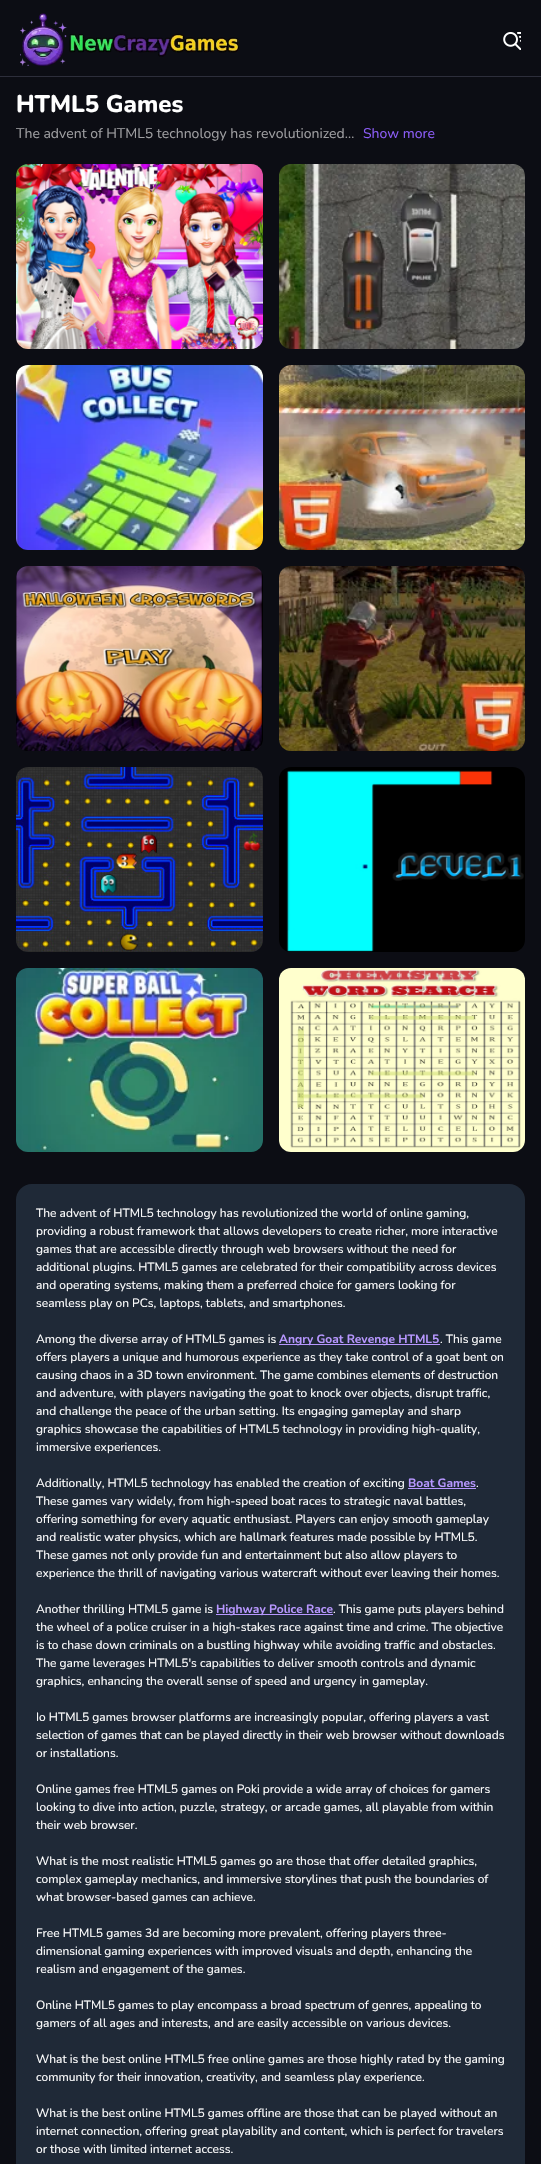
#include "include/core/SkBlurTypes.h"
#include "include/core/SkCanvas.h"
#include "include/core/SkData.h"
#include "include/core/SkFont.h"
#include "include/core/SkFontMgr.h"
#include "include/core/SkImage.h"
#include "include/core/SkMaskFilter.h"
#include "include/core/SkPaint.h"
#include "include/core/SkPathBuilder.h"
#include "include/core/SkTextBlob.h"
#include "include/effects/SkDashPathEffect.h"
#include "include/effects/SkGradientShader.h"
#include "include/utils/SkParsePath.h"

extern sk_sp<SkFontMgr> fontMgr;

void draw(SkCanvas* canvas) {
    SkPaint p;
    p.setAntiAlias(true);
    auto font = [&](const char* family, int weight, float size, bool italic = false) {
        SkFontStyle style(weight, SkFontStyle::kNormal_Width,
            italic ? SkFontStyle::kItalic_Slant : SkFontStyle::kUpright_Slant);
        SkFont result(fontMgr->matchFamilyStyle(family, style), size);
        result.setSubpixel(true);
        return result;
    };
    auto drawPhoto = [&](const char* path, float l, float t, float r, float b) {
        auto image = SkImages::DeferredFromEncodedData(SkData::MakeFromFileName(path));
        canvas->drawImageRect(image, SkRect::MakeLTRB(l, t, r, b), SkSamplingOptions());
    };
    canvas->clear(0xFF0C0D14);
    p.setColor(0xFF2D2E3B);
    canvas->drawRect(SkRect::MakeLTRB(0, 76, 541, 77), p);
    drawPhoto("media/1.png", 20, 13, 239, 66);
    drawPhoto("media/2.png", 503, 32, 521, 50);
    auto font1 = font("Nunito", 800, 24);
    p.setColor(0xFFFFFFFF);
    canvas->drawString("HTML5 Games", 16, 112, font1, p);
    auto font2 = font("Nunito", 400, 14);
    p.setColor(0xFF9E9EA1);
    canvas->drawString("The advent of HTML5 technology has revolutionized…", 16, 138, font2, p);
    p.setColor(0xFF8B5CF6);
    canvas->drawString("Show more", 363, 138, font2, p);
    drawPhoto("media/3.png", 16, 164, 263, 349);
    drawPhoto("media/4.png", 279, 164, 525, 349);
    drawPhoto("media/5.png", 16, 365, 263, 550);
    drawPhoto("media/6.png", 279, 365, 525, 550);
    drawPhoto("media/7.png", 16, 566, 263, 751);
    drawPhoto("media/8.png", 279, 566, 525, 751);
    drawPhoto("media/9.png", 16, 767, 263, 952);
    drawPhoto("media/10.png", 279, 767, 525, 952);
    drawPhoto("media/11.png", 16, 968, 263, 1152);
    drawPhoto("media/12.png", 279, 968, 525, 1152);
    p.setColor(0xFF1F2937);
    canvas->drawRoundRect(SkRect::MakeLTRB(16, 1184, 525, 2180), 16, 16, p);
    auto font3 = font("Nunito", 400, 12);
    p.setColor(0xFFFFFFFF);
    {
        const struct { const char* s; float x, y; } items[] = {
            {"The advent of HTML5 technology has revolutionized the world of online gaming,", 36, 1217},
            {"providing a robust framework that allows developers to create richer, more interactive", 36, 1235},
            {"games that are accessible directly through web browsers without the need for", 36, 1253},
            {"additional plugins. HTML5 games are celebrated for their compatibility across devices", 36, 1271},
            {"and operating systems, making them a preferred choice for gamers looking for", 36, 1289},
            {"seamless play on PCs, laptops, tablets, and smartphones.", 36, 1307},
            {"Among the diverse array of HTML5 games is", 36, 1343},
        };
        for (auto [s, x, y] : items) {
            canvas->drawString(s, x, y, font3, p);
        }
    }
    p.setColor(0xFFB797FF);
    canvas->drawRect(SkRect::MakeLTRB(279, 1344, 440, 1345), p);
    auto font4 = font("Nunito", 700, 12);
    canvas->drawString("Angry Goat Revenge HTML5", 279, 1343, font4, p);
    p.setColor(0xFFFFFFFF);
    {
        const struct { const char* s; float x, y; } items[] = {
            {". This game", 440, 1343},
            {"offers players a unique and humorous experience as they take control of a goat bent on", 36, 1361},
            {"causing chaos in a 3D town environment. The game combines elements of destruction", 36, 1379},
            {"and adventure, with players navigating the goat to knock over objects, disrupt traffic,", 36, 1397},
            {"and challenge the peace of the urban setting. Its engaging gameplay and sharp", 36, 1415},
            {"graphics showcase the capabilities of HTML5 technology in providing high-quality,", 36, 1433},
            {"immersive experiences.", 36, 1451},
            {"Additionally, HTML5 technology has enabled the creation of exciting", 36, 1487},
        };
        for (auto [s, x, y] : items) {
            canvas->drawString(s, x, y, font3, p);
        }
    }
    p.setColor(0xFFB797FF);
    canvas->drawString("Boat Games", 408, 1487, font4, p);
    canvas->drawRect(SkRect::MakeLTRB(408, 1488, 476, 1489), p);
    p.setColor(0xFFFFFFFF);
    {
        const struct { const char* s; float x, y; } items[] = {
            {".", 476, 1487},
            {"These games vary widely, from high-speed boat races to strategic naval battles,", 36, 1505},
            {"offering something for every aquatic enthusiast. Players can enjoy smooth gameplay", 36, 1523},
            {"and realistic water physics, which are hallmark features made possible by HTML5.", 36, 1541},
            {"These games not only provide fun and entertainment but also allow players to", 36, 1559},
            {"experience the thrill of navigating various watercraft without ever leaving their homes.", 36, 1577},
            {"Another thrilling HTML5 game is", 36, 1613},
        };
        for (auto [s, x, y] : items) {
            canvas->drawString(s, x, y, font3, p);
        }
    }
    p.setColor(0xFFB797FF);
    canvas->drawRect(SkRect::MakeLTRB(216, 1614, 333, 1615), p);
    canvas->drawString("Highway Police Race", 216, 1613, font4, p);
    p.setColor(0xFFFFFFFF);
    {
        const struct { const char* s; float x, y; } items[] = {
            {". This game puts players behind", 333, 1613},
            {"the wheel of a police cruiser in a high-stakes race against time and crime. The objective", 36, 1631},
            {"is to chase down criminals on a bustling highway while avoiding traffic and obstacles.", 36, 1649},
            {"The game leverages HTML5's capabilities to deliver smooth controls and dynamic", 36, 1667},
            {"graphics, enhancing the overall sense of speed and urgency in gameplay.", 36, 1685},
            {"Io HTML5 games browser platforms are increasingly popular, offering players a vast", 36, 1721},
            {"selection of games that can be played directly in their web browser without downloads", 36, 1739},
            {"or installations.", 36, 1757},
            {"Online games free HTML5 games on Poki provide a wide array of choices for gamers", 36, 1793},
            {"looking to dive into action, puzzle, strategy, or arcade games, all playable from within", 36, 1811},
            {"their web browser.", 36, 1829},
            {"What is the most realistic HTML5 games go are those that offer detailed graphics,", 36, 1865},
            {"complex gameplay mechanics, and immersive storylines that push the boundaries of", 36, 1883},
            {"what browser-based games can achieve.", 36, 1901},
            {"Free HTML5 games 3d are becoming more prevalent, offering players three-", 36, 1937},
            {"dimensional gaming experiences with improved visuals and depth, enhancing the", 36, 1955},
            {"realism and engagement of the games.", 36, 1973},
            {"Online HTML5 games to play encompass a broad spectrum of genres, appealing to", 36, 2009},
            {"gamers of all ages and interests, and are easily accessible on various devices.", 36, 2027},
            {"What is the best online HTML5 free online games are those highly rated by the gaming", 36, 2063},
            {"community for their innovation, creativity, and seamless play experience.", 36, 2081},
            {"What is the best online HTML5 games offline are those that can be played without an", 36, 2117},
            {"internet connection, offering great playability and content, which is perfect for travelers", 36, 2135},
            {"or those with limited internet access.", 36, 2153},
        };
        for (auto [s, x, y] : items) {
            canvas->drawString(s, x, y, font3, p);
        }
    }
}
